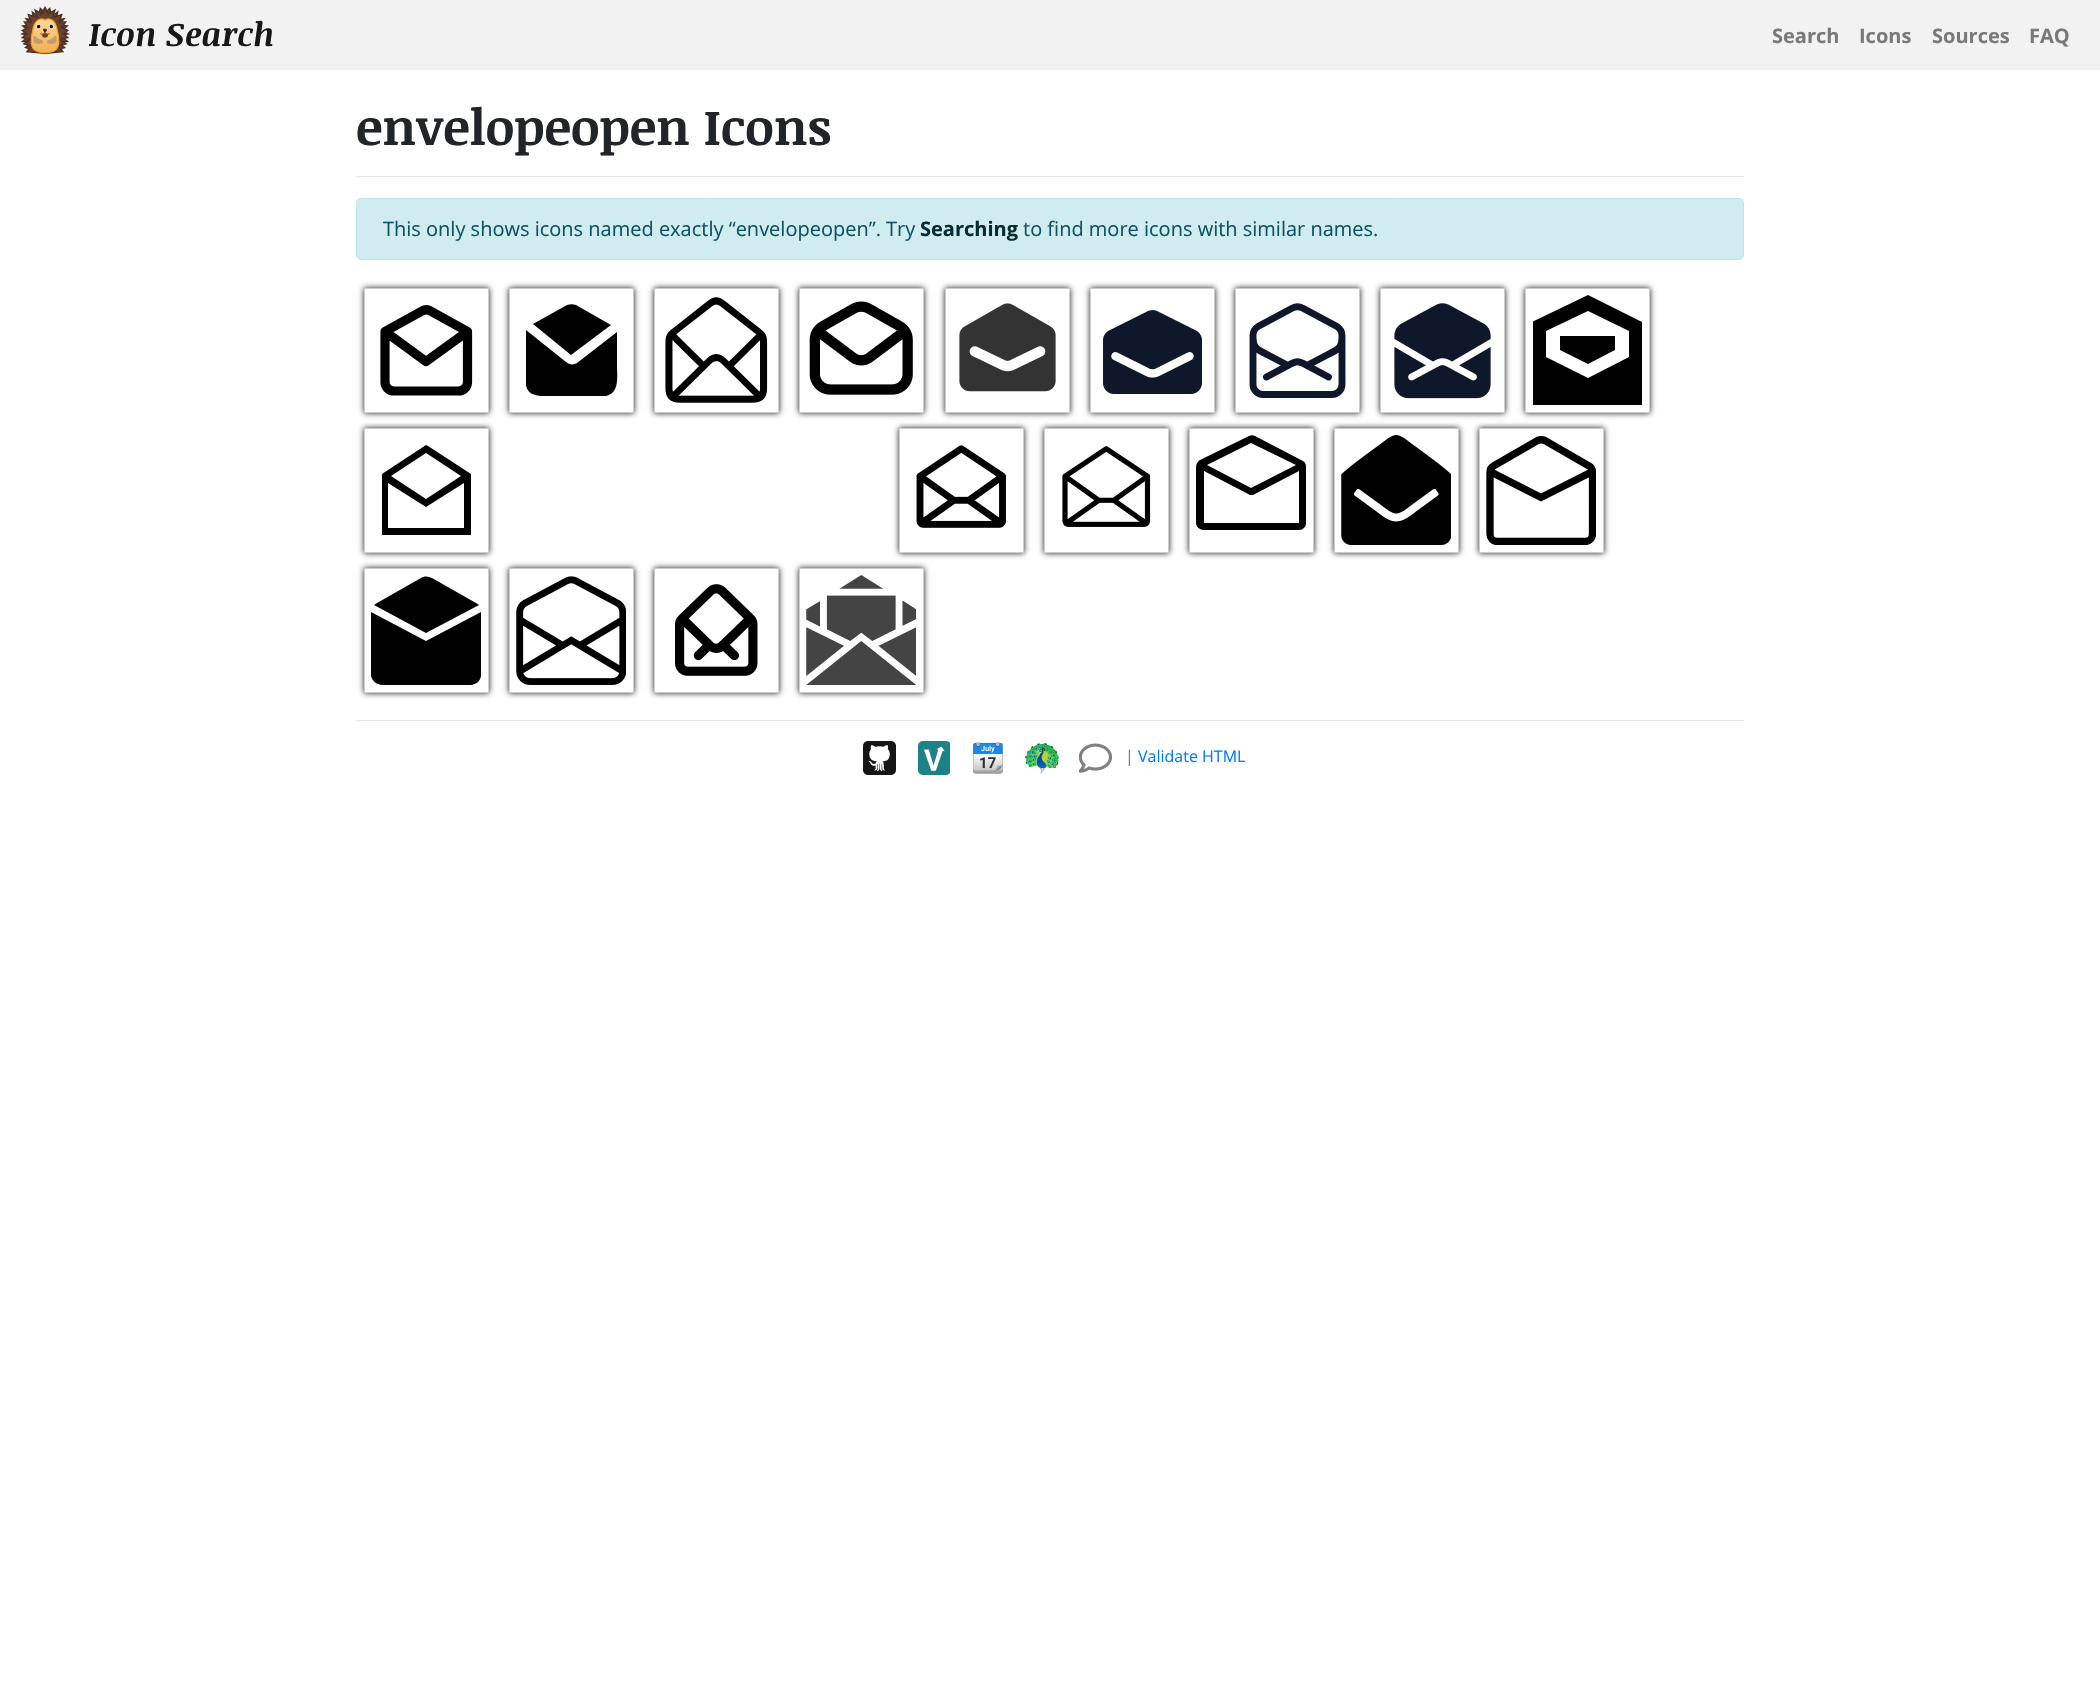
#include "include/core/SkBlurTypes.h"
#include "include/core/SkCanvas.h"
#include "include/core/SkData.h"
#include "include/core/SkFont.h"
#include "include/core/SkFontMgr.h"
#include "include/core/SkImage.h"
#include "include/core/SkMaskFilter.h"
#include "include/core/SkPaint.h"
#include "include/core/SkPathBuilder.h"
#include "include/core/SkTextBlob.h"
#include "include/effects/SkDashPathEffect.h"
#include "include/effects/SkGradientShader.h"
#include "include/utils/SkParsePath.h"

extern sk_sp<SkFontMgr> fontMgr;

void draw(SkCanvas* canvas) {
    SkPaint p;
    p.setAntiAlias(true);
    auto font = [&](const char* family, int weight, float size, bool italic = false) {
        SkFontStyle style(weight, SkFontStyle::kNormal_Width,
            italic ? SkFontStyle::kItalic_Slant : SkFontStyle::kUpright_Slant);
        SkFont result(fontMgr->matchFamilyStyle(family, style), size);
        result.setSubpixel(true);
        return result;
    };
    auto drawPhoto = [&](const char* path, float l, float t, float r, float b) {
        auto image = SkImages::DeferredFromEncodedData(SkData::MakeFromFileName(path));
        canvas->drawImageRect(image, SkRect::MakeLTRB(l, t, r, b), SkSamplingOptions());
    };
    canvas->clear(0xFFFFFFFF);
    p.setColor(0xFFF2F2F2);
    canvas->drawRect(SkRect::MakeLTRB(0, 0, 2100, 70), p);
    drawPhoto("media/1.png", 20, 6, 70, 55);
    auto font1 = font("Noticia Text", 700, 33, true);
    p.setColor(0xFF181818);
    canvas->drawString("Icon Search", 89, 46, font1, p);
    auto font2 = font("Open Sans", 700, 20);
    p.setColor(0xFF797979);
    {
        const struct { const char* s; float x, y; } items[] = {
            {"Search", 1772, 43},
            {"Icons", 1859, 43},
            {"Sources", 1932, 43},
            {"FAQ", 2029, 43},
        };
        for (auto [s, x, y] : items) {
            canvas->drawString(s, x, y, font2, p);
        }
    }
    auto font3 = font("Noticia Text", 700, 50);
    p.setColor(0xFF212529);
    canvas->drawString("envelopeopen Icons", 356, 145, font3, p);
    p.setColor(0xFFE6E6E6);
    canvas->drawRect(SkRect::MakeLTRB(356, 176, 1744, 177), p);
    p.setColor(0xFFD1ECF1);
    canvas->drawRoundRect(SkRect::MakeLTRB(356.5f, 198.5f, 1743.5f, 259.5f), 4.5f, 4.5f, p);
    p.setStyle(SkPaint::kStroke_Style);
    p.setStrokeWidth(1);
    p.setColor(0xFFBEE5EB);
    canvas->drawRoundRect(SkRect::MakeLTRB(356.5f, 198.5f, 1743.5f, 259.5f), 4.5f, 4.5f, p);
    auto font4 = font("Open Sans", 400, 20);
    p.setStyle(SkPaint::kFill_Style);
    p.setColor(0xFF0C5460);
    canvas->drawString("This only shows icons named exactly “envelopeopen”. Try", 383, 236, font4, p);
    p.setColor(0xFF062C33);
    canvas->drawString("Searching", 920, 236, font2, p);
    p.setColor(0xFF0C5460);
    canvas->drawString("to find more icons with similar names.", 1023, 236, font4, p);
    canvas->save();
    canvas->clipPath(SkPathBuilder(SkPathFillType::kEvenOdd).moveTo(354, 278).lineTo(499, 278).lineTo(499, 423).lineTo(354, 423).close().moveTo(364, 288).lineTo(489, 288).lineTo(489, 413).lineTo(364, 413).close().detach(), true);
    p.setColor(0xFF1D1D1D);
    p.setMaskFilter(SkMaskFilter::MakeBlur(kNormal_SkBlurStyle, 3));
    canvas->drawRect(SkRect::MakeLTRB(364, 288, 489, 413), p);
    p.setMaskFilter(nullptr);
    canvas->restore();
    canvas->save();
    canvas->clipPath(SkPathBuilder(SkPathFillType::kEvenOdd).moveTo(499, 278).lineTo(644, 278).lineTo(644, 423).lineTo(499, 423).close().moveTo(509, 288).lineTo(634, 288).lineTo(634, 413).lineTo(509, 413).close().detach(), true);
    p.setMaskFilter(SkMaskFilter::MakeBlur(kNormal_SkBlurStyle, 3));
    canvas->drawRect(SkRect::MakeLTRB(509, 288, 634, 413), p);
    p.setMaskFilter(nullptr);
    canvas->restore();
    canvas->save();
    canvas->clipPath(SkPathBuilder(SkPathFillType::kEvenOdd).moveTo(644, 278).lineTo(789, 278).lineTo(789, 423).lineTo(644, 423).close().moveTo(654, 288).lineTo(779, 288).lineTo(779, 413).lineTo(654, 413).close().detach(), true);
    p.setMaskFilter(SkMaskFilter::MakeBlur(kNormal_SkBlurStyle, 3));
    canvas->drawRect(SkRect::MakeLTRB(654, 288, 779, 413), p);
    p.setMaskFilter(nullptr);
    canvas->restore();
    canvas->save();
    canvas->clipPath(SkPathBuilder(SkPathFillType::kEvenOdd).moveTo(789, 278).lineTo(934, 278).lineTo(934, 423).lineTo(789, 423).close().moveTo(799, 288).lineTo(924, 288).lineTo(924, 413).lineTo(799, 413).close().detach(), true);
    p.setMaskFilter(SkMaskFilter::MakeBlur(kNormal_SkBlurStyle, 3));
    canvas->drawRect(SkRect::MakeLTRB(799, 288, 924, 413), p);
    p.setMaskFilter(nullptr);
    canvas->restore();
    canvas->save();
    canvas->clipPath(SkPathBuilder(SkPathFillType::kEvenOdd).moveTo(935, 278).lineTo(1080, 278).lineTo(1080, 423).lineTo(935, 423).close().moveTo(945, 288).lineTo(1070, 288).lineTo(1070, 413).lineTo(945, 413).close().detach(), true);
    p.setMaskFilter(SkMaskFilter::MakeBlur(kNormal_SkBlurStyle, 3));
    canvas->drawRect(SkRect::MakeLTRB(945, 288, 1070, 413), p);
    p.setMaskFilter(nullptr);
    canvas->restore();
    canvas->save();
    canvas->clipPath(SkPathBuilder(SkPathFillType::kEvenOdd).moveTo(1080, 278).lineTo(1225, 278).lineTo(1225, 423).lineTo(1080, 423).close().moveTo(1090, 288).lineTo(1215, 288).lineTo(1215, 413).lineTo(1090, 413).close().detach(), true);
    p.setMaskFilter(SkMaskFilter::MakeBlur(kNormal_SkBlurStyle, 3));
    canvas->drawRect(SkRect::MakeLTRB(1090, 288, 1215, 413), p);
    p.setMaskFilter(nullptr);
    canvas->restore();
    canvas->save();
    canvas->clipPath(SkPathBuilder(SkPathFillType::kEvenOdd).moveTo(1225, 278).lineTo(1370, 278).lineTo(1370, 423).lineTo(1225, 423).close().moveTo(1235, 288).lineTo(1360, 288).lineTo(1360, 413).lineTo(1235, 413).close().detach(), true);
    p.setMaskFilter(SkMaskFilter::MakeBlur(kNormal_SkBlurStyle, 3));
    canvas->drawRect(SkRect::MakeLTRB(1235, 288, 1360, 413), p);
    p.setMaskFilter(nullptr);
    canvas->restore();
    canvas->save();
    canvas->clipPath(SkPathBuilder(SkPathFillType::kEvenOdd).moveTo(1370, 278).lineTo(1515, 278).lineTo(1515, 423).lineTo(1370, 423).close().moveTo(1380, 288).lineTo(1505, 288).lineTo(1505, 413).lineTo(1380, 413).close().detach(), true);
    p.setMaskFilter(SkMaskFilter::MakeBlur(kNormal_SkBlurStyle, 3));
    canvas->drawRect(SkRect::MakeLTRB(1380, 288, 1505, 413), p);
    p.setMaskFilter(nullptr);
    canvas->restore();
    canvas->save();
    canvas->clipPath(SkPathBuilder(SkPathFillType::kEvenOdd).moveTo(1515, 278).lineTo(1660, 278).lineTo(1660, 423).lineTo(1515, 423).close().moveTo(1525, 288).lineTo(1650, 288).lineTo(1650, 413).lineTo(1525, 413).close().detach(), true);
    p.setMaskFilter(SkMaskFilter::MakeBlur(kNormal_SkBlurStyle, 3));
    canvas->drawRect(SkRect::MakeLTRB(1525, 288, 1650, 413), p);
    p.setMaskFilter(nullptr);
    canvas->restore();
    p.setStyle(SkPaint::kStroke_Style);
    p.setColor(0xFFCCCCCC);
    canvas->drawRect(SkRect::MakeLTRB(364.5f, 288.5f, 488.5f, 412.5f), p);
    canvas->drawRect(SkRect::MakeLTRB(509.5f, 288.5f, 633.5f, 412.5f), p);
    canvas->drawRect(SkRect::MakeLTRB(654.5f, 288.5f, 778.5f, 412.5f), p);
    canvas->drawRect(SkRect::MakeLTRB(799.5f, 288.5f, 923.5f, 412.5f), p);
    canvas->drawRect(SkRect::MakeLTRB(945.5f, 288.5f, 1069.5f, 412.5f), p);
    canvas->drawRect(SkRect::MakeLTRB(1090.5f, 288.5f, 1214.5f, 412.5f), p);
    canvas->drawRect(SkRect::MakeLTRB(1235.5f, 288.5f, 1359.5f, 412.5f), p);
    canvas->drawRect(SkRect::MakeLTRB(1380.5f, 288.5f, 1504.5f, 412.5f), p);
    canvas->drawRect(SkRect::MakeLTRB(1525.5f, 288.5f, 1649.5f, 412.5f), p);
    p.setStrokeWidth(9.2f);
    p.setStrokeCap(SkPaint::kRound_Cap);
    p.setStrokeJoin(SkPaint::kRound_Join);
    p.setColor(0xFF000000);
    canvas->drawPath(SkPathBuilder().moveTo(467.5f, 331.5f).lineTo(467.5f, 382).cubicTo(467.5f, 387, 463.5f, 391, 458.5f, 391).lineTo(394, 391).cubicTo(389, 391, 385, 387, 385, 382).lineTo(385, 331.5f).moveTo(467.5f, 331.5f).lineTo(430.5f, 311).cubicTo(428, 309.5f, 424.5f, 309.5f, 422, 311).lineTo(385, 331.5f).moveTo(467.5f, 331.5f).lineTo(426, 361.5f).lineTo(385, 331.5f).detach(), p);
    p.setStyle(SkPaint::kFill_Style);
    canvas->drawPath(SkPathBuilder().moveTo(533, 324).lineTo(571, 355).lineTo(611, 325).lineTo(576, 305).cubicTo(573, 304, 570, 304, 567, 305).close().detach(), p);
    drawPhoto("media/2.png", 665, 297, 768, 403);
    drawPhoto("media/3.png", 809, 301, 913, 395);
    drawPhoto("media/4.png", 959, 303, 1056, 392);
    drawPhoto("media/5.png", 1103, 310, 1202, 394);
    p.setStyle(SkPaint::kStroke_Style);
    p.setStrokeWidth(6.9f);
    p.setColor(0xFF0F172A);
    canvas->drawPath(SkPathBuilder().moveTo(1342, 336).cubicTo(1342, 349, 1338, 349, 1327, 355).lineTo(1307, 365.5f).moveTo(1253, 336).cubicTo(1253, 349, 1257, 349, 1268, 355).lineTo(1288, 365.5f).moveTo(1328.5f, 377).lineTo(1307, 365.5f).moveTo(1307, 365.5f).cubicTo(1298, 360.5f, 1297, 360.5f, 1288, 365.5f).moveTo(1288, 365.5f).lineTo(1266.5f, 377).moveTo(1342, 384.5f).cubicTo(1342, 390, 1337.5f, 394.5f, 1332, 394.5f).lineTo(1263, 394.5f).cubicTo(1257.5f, 394.5f, 1253, 390, 1253, 384.5f).lineTo(1253, 335.5f).cubicTo(1253, 331.5f, 1255, 328.5f, 1258, 326.5f).lineTo(1292.5f, 308).cubicTo(1295.5f, 306.5f, 1299.5f, 306.5f, 1302.5f, 308).lineTo(1337, 326.5f).cubicTo(1340, 328.5f, 1342, 331.5f, 1342, 335.5f).close().detach(), p);
    drawPhoto("media/6.png", 1394, 303, 1491, 399);
    canvas->save();
    canvas->clipRect(SkRect::MakeLTRB(1533, 295, 1643, 405));
    p.setStyle(SkPaint::kFill_Style);
    p.setColor(0xFF000000);
    canvas->drawPath(SkPathBuilder().moveTo(1588, 295).lineTo(1532, 322).lineTo(1532, 405).lineTo(1642, 405).lineTo(1642, 322).close().moveTo(1588, 311).lineTo(1629, 331).lineTo(1629, 357).lineTo(1588, 378).lineTo(1546, 357).lineTo(1546, 331).close().moveTo(1560, 336).lineTo(1560, 350).lineTo(1588, 364).lineTo(1615, 350).lineTo(1615, 336).close().detach(), p);
    canvas->restore();
    canvas->drawPath(SkPathBuilder().moveTo(617, 332).lineTo(577, 363).cubicTo(574, 365, 569, 365, 566, 362).lineTo(526, 330).lineTo(526, 385).cubicTo(528, 397, 540, 396, 550, 396).lineTo(606, 396).cubicTo(620, 393, 617, 376, 617, 365).close().detach(), p);
    canvas->save();
    canvas->clipPath(SkPathBuilder(SkPathFillType::kEvenOdd).moveTo(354, 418).lineTo(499, 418).lineTo(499, 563).lineTo(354, 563).close().moveTo(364, 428).lineTo(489, 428).lineTo(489, 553).lineTo(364, 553).close().detach(), true);
    p.setColor(0xFF1D1D1D);
    p.setMaskFilter(SkMaskFilter::MakeBlur(kNormal_SkBlurStyle, 3));
    canvas->drawRect(SkRect::MakeLTRB(364, 428, 489, 553), p);
    p.setMaskFilter(nullptr);
    canvas->restore();
    canvas->save();
    canvas->clipPath(SkPathBuilder(SkPathFillType::kEvenOdd).moveTo(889, 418).lineTo(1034, 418).lineTo(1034, 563).lineTo(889, 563).close().moveTo(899, 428).lineTo(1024, 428).lineTo(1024, 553).lineTo(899, 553).close().detach(), true);
    p.setMaskFilter(SkMaskFilter::MakeBlur(kNormal_SkBlurStyle, 3));
    canvas->drawRect(SkRect::MakeLTRB(899, 428, 1024, 553), p);
    p.setMaskFilter(nullptr);
    canvas->restore();
    canvas->save();
    canvas->clipPath(SkPathBuilder(SkPathFillType::kEvenOdd).moveTo(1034, 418).lineTo(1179, 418).lineTo(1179, 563).lineTo(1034, 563).close().moveTo(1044, 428).lineTo(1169, 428).lineTo(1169, 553).lineTo(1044, 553).close().detach(), true);
    p.setMaskFilter(SkMaskFilter::MakeBlur(kNormal_SkBlurStyle, 3));
    canvas->drawRect(SkRect::MakeLTRB(1044, 428, 1169, 553), p);
    p.setMaskFilter(nullptr);
    canvas->restore();
    canvas->save();
    canvas->clipPath(SkPathBuilder(SkPathFillType::kEvenOdd).moveTo(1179, 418).lineTo(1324, 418).lineTo(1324, 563).lineTo(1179, 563).close().moveTo(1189, 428).lineTo(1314, 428).lineTo(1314, 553).lineTo(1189, 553).close().detach(), true);
    p.setMaskFilter(SkMaskFilter::MakeBlur(kNormal_SkBlurStyle, 3));
    canvas->drawRect(SkRect::MakeLTRB(1189, 428, 1314, 553), p);
    p.setMaskFilter(nullptr);
    canvas->restore();
    canvas->save();
    canvas->clipPath(SkPathBuilder(SkPathFillType::kEvenOdd).moveTo(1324, 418).lineTo(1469, 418).lineTo(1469, 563).lineTo(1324, 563).close().moveTo(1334, 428).lineTo(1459, 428).lineTo(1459, 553).lineTo(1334, 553).close().detach(), true);
    p.setMaskFilter(SkMaskFilter::MakeBlur(kNormal_SkBlurStyle, 3));
    canvas->drawRect(SkRect::MakeLTRB(1334, 428, 1459, 553), p);
    p.setMaskFilter(nullptr);
    canvas->restore();
    canvas->save();
    canvas->clipPath(SkPathBuilder(SkPathFillType::kEvenOdd).moveTo(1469, 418).lineTo(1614, 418).lineTo(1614, 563).lineTo(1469, 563).close().moveTo(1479, 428).lineTo(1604, 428).lineTo(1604, 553).lineTo(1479, 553).close().detach(), true);
    p.setMaskFilter(SkMaskFilter::MakeBlur(kNormal_SkBlurStyle, 3));
    canvas->drawRect(SkRect::MakeLTRB(1479, 428, 1604, 553), p);
    p.setMaskFilter(nullptr);
    canvas->restore();
    p.setStyle(SkPaint::kStroke_Style);
    p.setStrokeWidth(1);
    p.setStrokeCap(SkPaint::kButt_Cap);
    p.setStrokeJoin(SkPaint::kMiter_Join);
    p.setColor(0xFFCCCCCC);
    canvas->drawRect(SkRect::MakeLTRB(364.5f, 428.5f, 488.5f, 552.5f), p);
    canvas->drawRect(SkRect::MakeLTRB(899.5f, 428.5f, 1023.5f, 552.5f), p);
    canvas->drawRect(SkRect::MakeLTRB(1044.5f, 428.5f, 1168.5f, 552.5f), p);
    canvas->drawRect(SkRect::MakeLTRB(1189.5f, 428.5f, 1313.5f, 552.5f), p);
    canvas->drawRect(SkRect::MakeLTRB(1334.5f, 428.5f, 1458.5f, 552.5f), p);
    canvas->drawRect(SkRect::MakeLTRB(1479.5f, 428.5f, 1603.5f, 552.5f), p);
    p.setStyle(SkPaint::kFill_Style);
    p.setColor(0xFF000000);
    canvas->drawPath(SkPathBuilder().moveTo(426, 445).lineTo(382, 474).lineTo(382, 535).lineTo(471, 535).lineTo(471, 474).lineTo(428, 446).close().moveTo(426, 453).lineTo(461, 476).lineTo(426, 499).lineTo(391, 476).close().moveTo(388, 483).lineTo(426, 507).lineTo(464, 483).lineTo(464, 528).lineTo(388, 528).close().detach(), p);
    drawPhoto("media/7.png", 916, 445, 1006, 528);
    drawPhoto("media/8.png", 1062, 446, 1151, 527);
    canvas->drawPath(SkPathBuilder().moveTo(1249, 436).cubicTo(1251, 435, 1253, 435, 1255, 436).lineTo(1303, 461).cubicTo(1305, 462, 1306, 464, 1306, 467).lineTo(1306, 523).cubicTo(1306, 527, 1303, 530, 1299, 530).lineTo(1204, 530).cubicTo(1200, 530, 1196, 527, 1196, 523).lineTo(1196, 467).cubicTo(1196, 464, 1198, 461, 1200, 460).close().moveTo(1253, 495).lineTo(1250, 495).lineTo(1204, 471).lineTo(1204, 523).lineTo(1299, 523).lineTo(1299, 471).close().moveTo(1207, 465).lineTo(1251, 488).lineTo(1296, 465).lineTo(1251, 443).close().detach(), p);
    drawPhoto("media/9.png", 1341, 435, 1451, 545);
    canvas->save();
    canvas->clipRect(SkRect::MakeLTRB(1486, 435, 1596, 545));
    p.setStyle(SkPaint::kStroke_Style);
    p.setStrokeWidth(7.3f);
    canvas->drawPath(SkPathBuilder().moveTo(1490, 471.5f).lineTo(1541, 497.5f).lineTo(1592.5f, 471.5f).moveTo(1592.5f, 472.5f).lineTo(1592.5f, 534).cubicTo(1592.5f, 538, 1589.5f, 541.5f, 1585, 541.5f).lineTo(1497, 541.5f).cubicTo(1493, 541.5f, 1490, 538, 1490, 534).lineTo(1490, 472.5f).cubicTo(1490, 469.5f, 1491.5f, 467, 1493.5f, 466).lineTo(1537.5f, 440.5f).cubicTo(1540, 439.5f, 1542.5f, 439.5f, 1545, 440.5f).lineTo(1589, 466).cubicTo(1591, 467, 1592.5f, 469.5f, 1592.5f, 472.5f).close().detach(), p);
    canvas->restore();
    canvas->save();
    canvas->clipPath(SkPathBuilder(SkPathFillType::kEvenOdd).moveTo(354, 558).lineTo(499, 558).lineTo(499, 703).lineTo(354, 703).close().moveTo(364, 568).lineTo(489, 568).lineTo(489, 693).lineTo(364, 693).close().detach(), true);
    p.setStyle(SkPaint::kFill_Style);
    p.setColor(0xFF1D1D1D);
    p.setMaskFilter(SkMaskFilter::MakeBlur(kNormal_SkBlurStyle, 3));
    canvas->drawRect(SkRect::MakeLTRB(364, 568, 489, 693), p);
    p.setMaskFilter(nullptr);
    canvas->restore();
    canvas->save();
    canvas->clipPath(SkPathBuilder(SkPathFillType::kEvenOdd).moveTo(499, 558).lineTo(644, 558).lineTo(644, 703).lineTo(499, 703).close().moveTo(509, 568).lineTo(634, 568).lineTo(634, 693).lineTo(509, 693).close().detach(), true);
    p.setMaskFilter(SkMaskFilter::MakeBlur(kNormal_SkBlurStyle, 3));
    canvas->drawRect(SkRect::MakeLTRB(509, 568, 634, 693), p);
    p.setMaskFilter(nullptr);
    canvas->restore();
    canvas->save();
    canvas->clipPath(SkPathBuilder(SkPathFillType::kEvenOdd).moveTo(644, 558).lineTo(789, 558).lineTo(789, 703).lineTo(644, 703).close().moveTo(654, 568).lineTo(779, 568).lineTo(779, 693).lineTo(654, 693).close().detach(), true);
    p.setMaskFilter(SkMaskFilter::MakeBlur(kNormal_SkBlurStyle, 3));
    canvas->drawRect(SkRect::MakeLTRB(654, 568, 779, 693), p);
    p.setMaskFilter(nullptr);
    canvas->restore();
    canvas->save();
    canvas->clipPath(SkPathBuilder(SkPathFillType::kEvenOdd).moveTo(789, 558).lineTo(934, 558).lineTo(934, 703).lineTo(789, 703).close().moveTo(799, 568).lineTo(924, 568).lineTo(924, 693).lineTo(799, 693).close().detach(), true);
    p.setMaskFilter(SkMaskFilter::MakeBlur(kNormal_SkBlurStyle, 3));
    canvas->drawRect(SkRect::MakeLTRB(799, 568, 924, 693), p);
    p.setMaskFilter(nullptr);
    canvas->restore();
    p.setStyle(SkPaint::kStroke_Style);
    p.setStrokeWidth(1);
    p.setColor(0xFFCCCCCC);
    canvas->drawRect(SkRect::MakeLTRB(364.5f, 568.5f, 488.5f, 692.5f), p);
    canvas->drawRect(SkRect::MakeLTRB(509.5f, 568.5f, 633.5f, 692.5f), p);
    canvas->drawRect(SkRect::MakeLTRB(654.5f, 568.5f, 778.5f, 692.5f), p);
    canvas->drawRect(SkRect::MakeLTRB(799.5f, 568.5f, 923.5f, 692.5f), p);
    p.setStyle(SkPaint::kFill_Style);
    p.setColor(0xFF000000);
    canvas->drawPath(SkPathBuilder().moveTo(421, 578).cubicTo(424, 576, 428, 576, 432, 578).lineTo(476, 603).lineTo(479, 605).lineTo(426, 633).lineTo(374, 605).lineTo(377, 603).close().detach(), p);
    drawPhoto("media/10.png", 516, 576, 626, 685);
    drawPhoto("media/11.png", 675, 584, 758, 676);
    drawPhoto("media/12.png", 806, 575, 916, 685);
    canvas->save();
    canvas->clipRect(SkRect::MakeLTRB(371, 575, 481, 685));
    canvas->drawPath(SkPathBuilder().moveTo(371, 612).lineTo(371, 676).cubicTo(374, 688, 389, 685, 397, 685).lineTo(456, 685).cubicTo(464, 685, 479, 688, 481, 676).lineTo(481, 612).lineTo(426, 641).close().detach(), p);
    canvas->restore();
    p.setColor(0xFFE6E6E6);
    canvas->drawRect(SkRect::MakeLTRB(356, 720, 1744, 721), p);
    drawPhoto("media/13.png", 863, 741, 896, 775);
    drawPhoto("media/14.png", 918, 741, 950, 775);
    drawPhoto("media/15.png", 973, 742, 1003, 774);
    drawPhoto("media/16.png", 1025, 743, 1059, 773);
    drawPhoto("media/17.png", 1079, 743, 1113, 773);
    auto font5 = font("Open Sans", 400, 16);
    p.setColor(0xFF6C757D);
    canvas->drawString("|", 1125, 762, font5, p);
    p.setColor(0xFF007BFF);
    canvas->drawString("Validate HTML", 1138, 762, font5, p);
}
